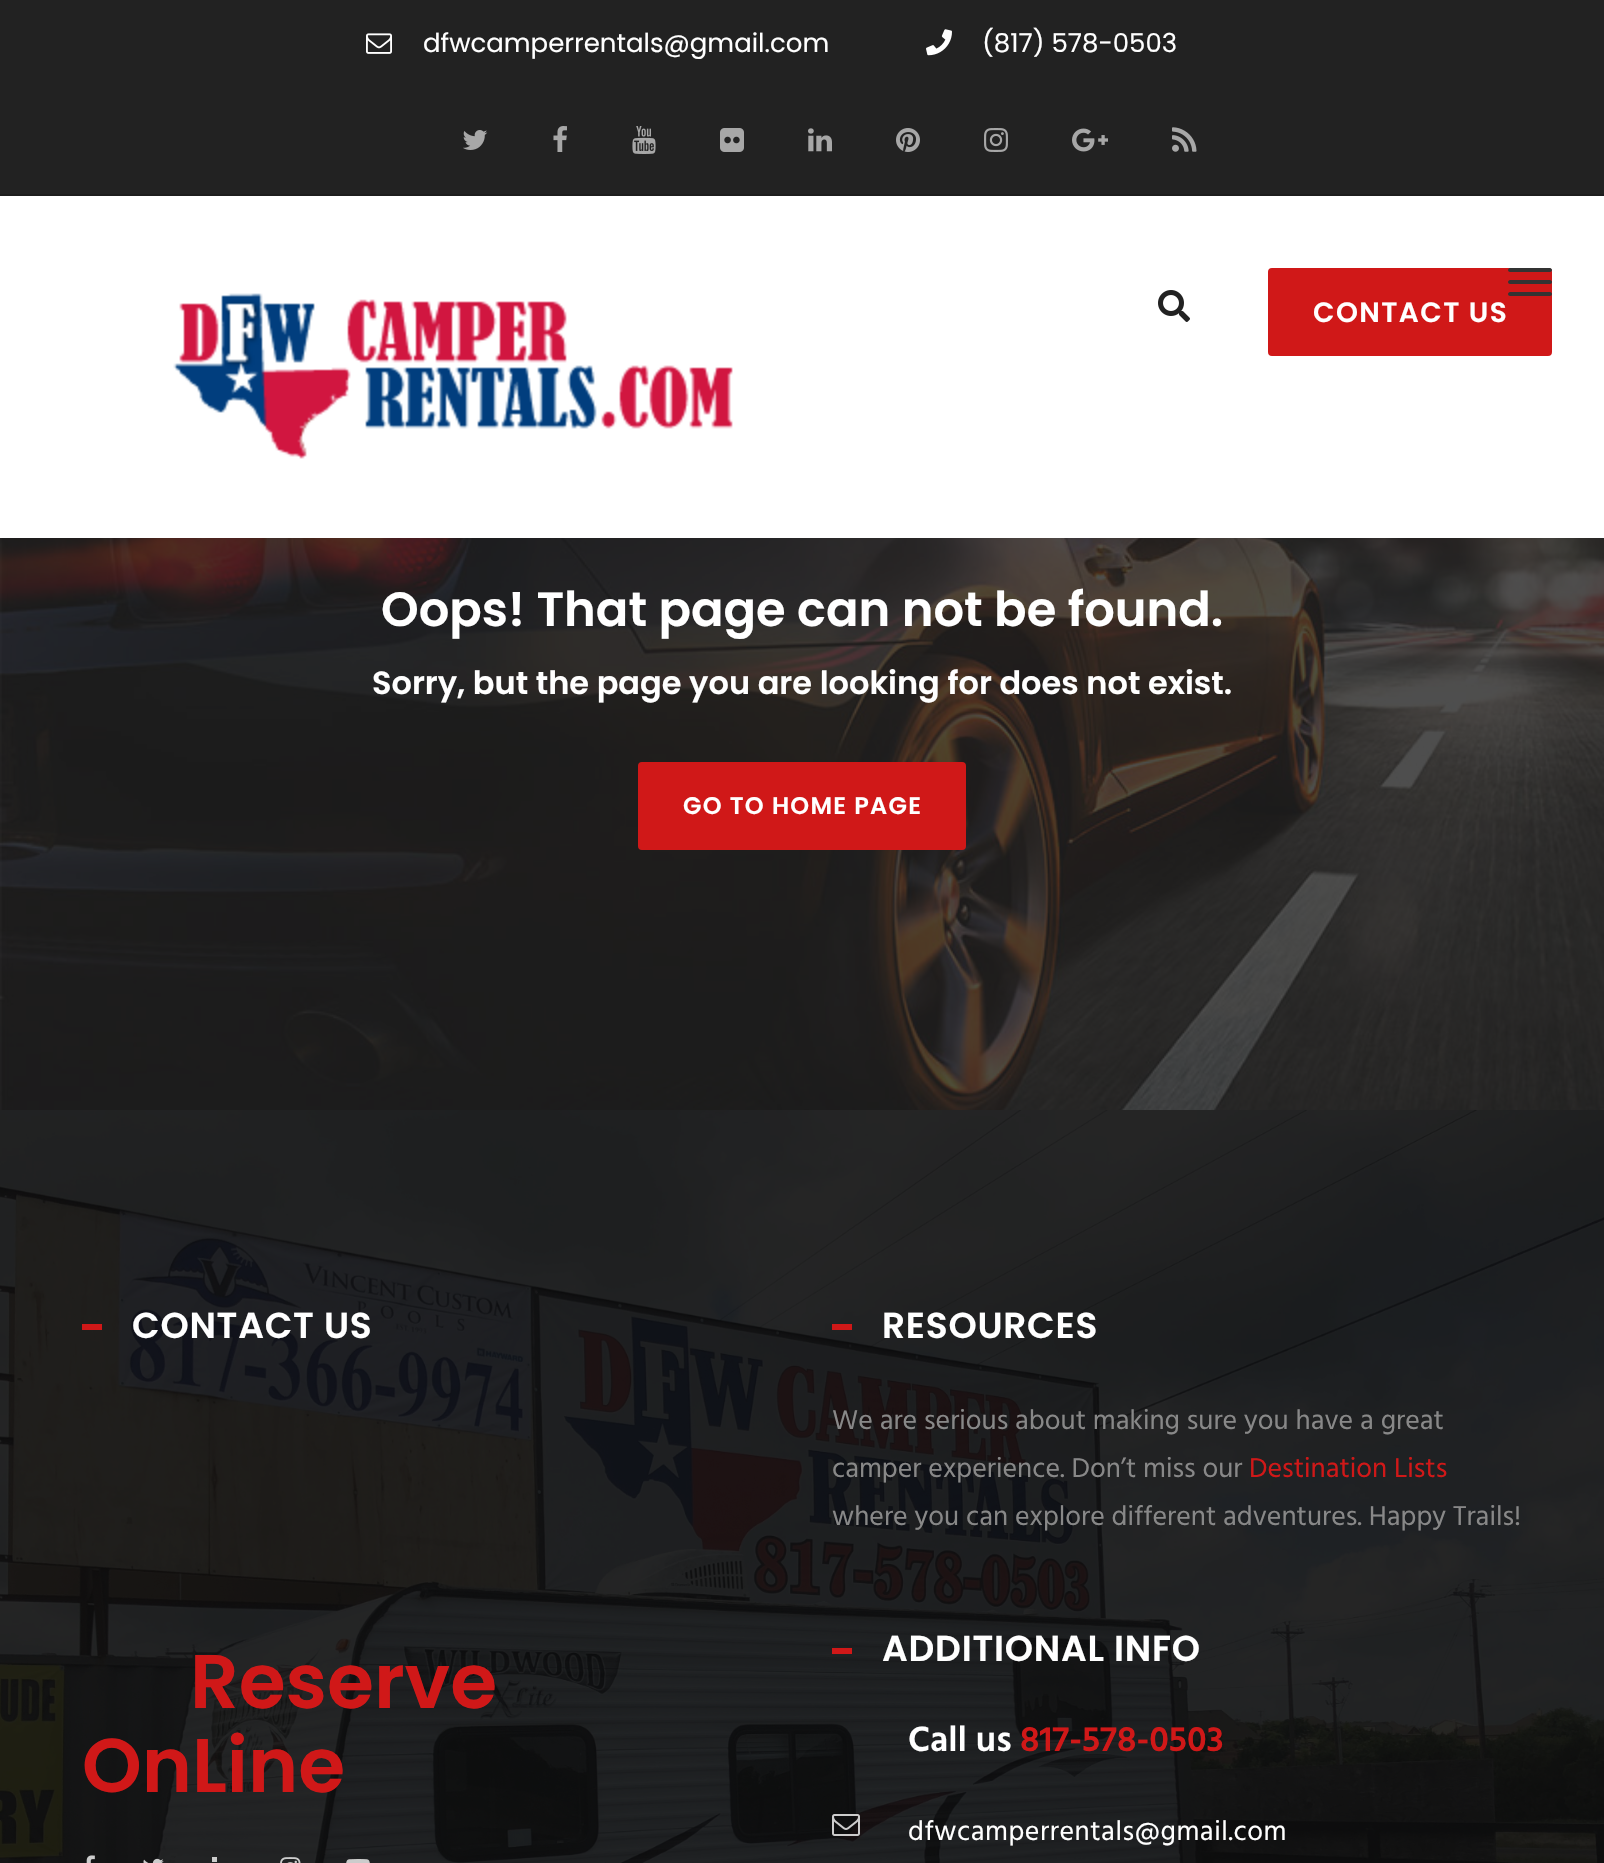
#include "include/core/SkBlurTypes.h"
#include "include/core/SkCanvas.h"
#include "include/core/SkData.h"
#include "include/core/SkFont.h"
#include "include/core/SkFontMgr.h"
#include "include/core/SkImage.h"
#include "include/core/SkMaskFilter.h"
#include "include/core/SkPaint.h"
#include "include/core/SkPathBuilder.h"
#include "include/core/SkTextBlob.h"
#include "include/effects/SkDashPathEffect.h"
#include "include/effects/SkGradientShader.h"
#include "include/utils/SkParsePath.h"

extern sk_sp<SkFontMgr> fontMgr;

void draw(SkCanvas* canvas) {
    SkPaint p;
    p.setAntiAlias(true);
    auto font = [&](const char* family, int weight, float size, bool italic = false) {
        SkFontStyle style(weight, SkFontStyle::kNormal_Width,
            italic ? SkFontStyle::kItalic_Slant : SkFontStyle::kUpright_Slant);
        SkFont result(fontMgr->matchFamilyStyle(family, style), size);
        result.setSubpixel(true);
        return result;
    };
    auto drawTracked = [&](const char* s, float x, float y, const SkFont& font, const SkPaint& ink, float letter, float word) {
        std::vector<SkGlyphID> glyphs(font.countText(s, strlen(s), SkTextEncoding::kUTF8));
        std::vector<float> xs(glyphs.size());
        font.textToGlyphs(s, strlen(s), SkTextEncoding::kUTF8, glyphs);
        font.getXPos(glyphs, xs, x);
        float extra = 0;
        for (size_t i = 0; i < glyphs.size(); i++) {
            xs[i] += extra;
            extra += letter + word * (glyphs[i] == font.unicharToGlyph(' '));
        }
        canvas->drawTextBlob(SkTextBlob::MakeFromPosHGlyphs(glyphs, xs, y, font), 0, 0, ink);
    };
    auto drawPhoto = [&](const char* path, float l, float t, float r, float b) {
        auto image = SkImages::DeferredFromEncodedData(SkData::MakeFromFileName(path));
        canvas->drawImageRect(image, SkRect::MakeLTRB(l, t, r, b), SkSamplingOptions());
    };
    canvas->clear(0xFFFFFFFF);
    p.setColor(0xFF222222);
    canvas->drawRect(SkRect::MakeLTRB(0, 0, 1604, 194), p);
    p.setColor(0xFF1D1D1D);
    canvas->drawRect(SkRect::MakeLTRB(0, 194, 1604, 196), p);
    drawPhoto("media/1.png", 366, 33, 392, 54);
    auto font1 = font("Poppins", 400, 26);
    p.setColor(0xFFFFFFFF);
    canvas->drawString("dfwcamperrentals@gmail.com", 423, 52, font1, p);
    drawPhoto("media/2.png", 926, 29, 952, 56);
    canvas->drawString("(817) 578-0503", 982, 52, font1, p);
    drawPhoto("media/3.png", 463, 130, 488, 150);
    drawPhoto("media/4.png", 553, 126, 567, 152);
    drawPhoto("media/5.png", 632, 126, 656, 154);
    drawPhoto("media/6.png", 720, 128, 744, 152);
    drawPhoto("media/7.png", 808, 128, 832, 152);
    drawPhoto("media/8.png", 896, 128, 920, 152);
    drawPhoto("media/9.png", 984, 128, 1008, 152);
    drawPhoto("media/10.png", 1072, 128, 1108, 152);
    drawPhoto("media/11.png", 1172, 127, 1197, 152);
    p.setColor(0xFFD01818);
    canvas->drawRoundRect(SkRect::MakeLTRB(1270, 270, 1550, 354), 2, 2, p);
    p.setStyle(SkPaint::kStroke_Style);
    p.setStrokeWidth(4);
    canvas->drawRoundRect(SkRect::MakeLTRB(1270, 270, 1550, 354), 2, 2, p);
    p.setStyle(SkPaint::kFill_Style);
    p.setColor(0xFF333333);
    canvas->drawPath(SkPathBuilder().moveTo(1510, 268).lineTo(1530, 268).lineTo(1530, 272).lineTo(1510, 272).cubicTo(1509, 272, 1508, 271, 1508, 270).cubicTo(1508, 269, 1509, 268, 1510, 268).close().detach(), p);
    canvas->drawPath(SkPathBuilder().moveTo(1530, 268).lineTo(1550, 268).cubicTo(1551, 268, 1552, 269, 1552, 270).cubicTo(1552, 271, 1551, 272, 1550, 272).lineTo(1530, 272).close().detach(), p);
    canvas->drawPath(SkPathBuilder().moveTo(1510, 280).lineTo(1530, 280).lineTo(1530, 284).lineTo(1510, 284).cubicTo(1509, 284, 1508, 283, 1508, 282).cubicTo(1508, 281, 1509, 280, 1510, 280).close().detach(), p);
    canvas->drawPath(SkPathBuilder().moveTo(1530, 280).lineTo(1550, 280).cubicTo(1551, 280, 1552, 281, 1552, 282).cubicTo(1552, 283, 1551, 284, 1550, 284).lineTo(1530, 284).close().detach(), p);
    canvas->drawPath(SkPathBuilder().moveTo(1510, 292).lineTo(1530, 292).lineTo(1530, 296).lineTo(1510, 296).cubicTo(1509, 296, 1508, 295, 1508, 294).cubicTo(1508, 293, 1509, 292, 1510, 292).close().detach(), p);
    canvas->drawPath(SkPathBuilder().moveTo(1530, 292).lineTo(1550, 292).cubicTo(1551, 292, 1552, 293, 1552, 294).cubicTo(1552, 295, 1551, 296, 1550, 296).lineTo(1530, 296).close().detach(), p);
    drawPhoto("media/12.png", 173, 293, 733, 459);
    drawPhoto("media/13.png", 1158, 290, 1190, 322);
    auto font2 = font("Poppins", 600, 28);
    p.setColor(0xFFFFFFFF);
    drawTracked("CONTACT US", 1313, 322, font2, p, 1.4f, 0);
    drawPhoto("media/14.png", 0, 538, 1604, 1110);
    auto font3 = font("Poppins", 600, 48);
    canvas->drawString("Oops! That page can not be found.", 381, 626, font3, p);
    auto font4 = font("Poppins", 600, 32);
    canvas->drawString("Sorry, but the page you are looking for does not exist.", 372, 694, font4, p);
    p.setColor(0xFFD01818);
    canvas->drawRoundRect(SkRect::MakeLTRB(640, 764, 964, 848), 2, 2, p);
    p.setStyle(SkPaint::kStroke_Style);
    canvas->drawRoundRect(SkRect::MakeLTRB(640, 764, 964, 848), 2, 2, p);
    auto font5 = font("Poppins", 600, 24);
    p.setStyle(SkPaint::kFill_Style);
    p.setColor(0xFFFFFFFF);
    drawTracked("GO TO HOME PAGE", 683, 814, font5, p, 1.25f, 0);
    drawPhoto("media/15.png", 0, 1110, 1604, 1863);
    p.setColor(0xFFD01818);
    canvas->drawRect(SkRect::MakeLTRB(82, 1324, 102, 1330), p);
    auto font6 = font("Poppins", 600, 36);
    p.setColor(0xFFFFFFFF);
    drawTracked("CONTACT US", 132, 1338, font6, p, 0.75f, 0);
    auto font7 = font("Poppins", 600, 76);
    p.setColor(0xFFD01818);
    canvas->drawString("Reserve", 190, 1708, font7, p);
    canvas->drawString("OnLine", 82, 1792, font7, p);
    drawPhoto("media/16.png", 86, 1855, 95, 1863);
    drawPhoto("media/17.png", 143, 1858, 164, 1863);
    p.setColor(0xFFCCCCCC);
    canvas->drawRect(SkRect::MakeLTRB(212, 1857, 217, 1862), p);
    drawPhoto("media/18.png", 280, 1857, 301, 1863);
    drawPhoto("media/19.png", 346, 1859, 370, 1863);
    p.setColor(0xFFD01818);
    canvas->drawRect(SkRect::MakeLTRB(832, 1324, 852, 1330), p);
    p.setColor(0xFFFFFFFF);
    drawTracked("RESOURCES", 882, 1338, font6, p, 0.75f, 0);
    auto font8 = font("Hind", 400, 28);
    p.setColor(0xFF888888);
    canvas->drawString("We are serious about making sure you have a great", 832, 1429, font8, p);
    canvas->drawString("camper experience. Don’t miss our", 832, 1477, font8, p);
    p.setColor(0xFFD01818);
    canvas->drawString("Destination Lists", 1249, 1477, font8, p);
    p.setColor(0xFF888888);
    canvas->drawString("where you can explore different adventures. Happy Trails!", 832, 1525, font8, p);
    p.setColor(0xFFD01818);
    canvas->drawRect(SkRect::MakeLTRB(832, 1648, 852, 1654), p);
    p.setColor(0xFFFFFFFF);
    drawTracked("ADDITIONAL INFO", 882, 1661, font6, p, 0.75f, 0);
    auto font9 = font("Hind", 600, 36);
    canvas->drawString("Call us", 908, 1751, font9, p);
    p.setColor(0xFFD01818);
    canvas->drawString("817-578-0503", 1020, 1751, font9, p);
    drawPhoto("media/20.png", 832, 1814, 860, 1836);
    p.setColor(0xFFFFFFFF);
    drawTracked("dfwcamperrentals@gmail.com", 908, 1840, font8, p, 0.55f, 0);
}
